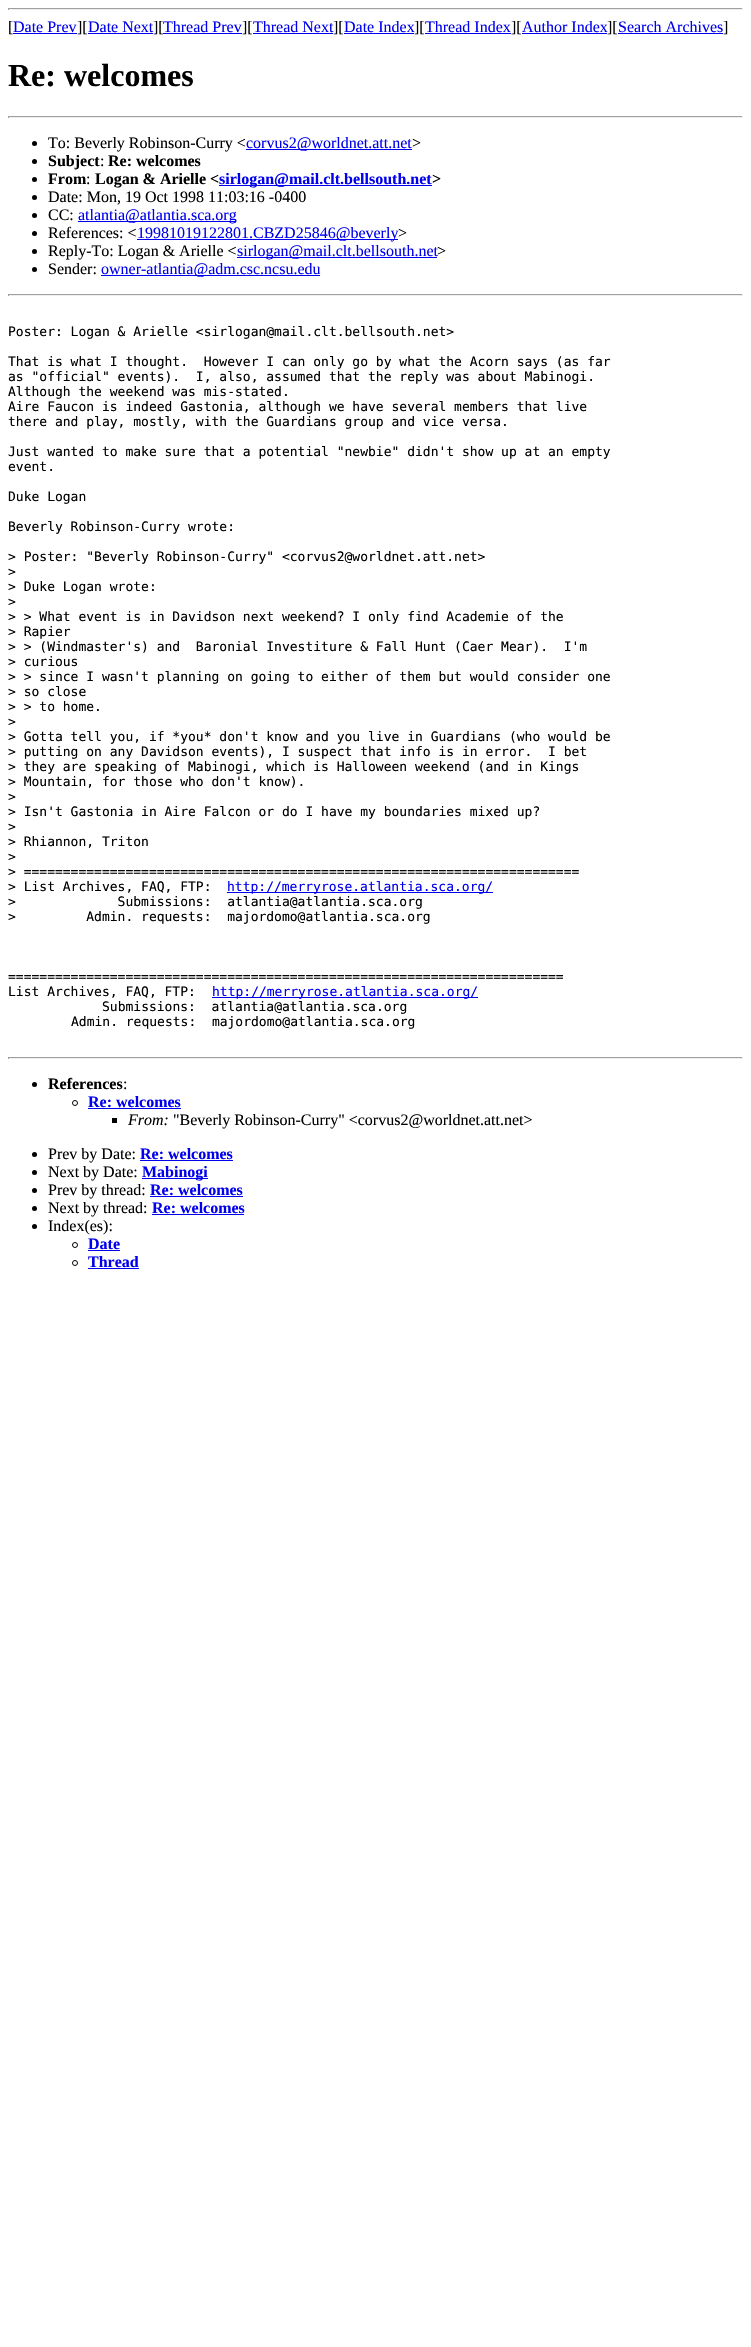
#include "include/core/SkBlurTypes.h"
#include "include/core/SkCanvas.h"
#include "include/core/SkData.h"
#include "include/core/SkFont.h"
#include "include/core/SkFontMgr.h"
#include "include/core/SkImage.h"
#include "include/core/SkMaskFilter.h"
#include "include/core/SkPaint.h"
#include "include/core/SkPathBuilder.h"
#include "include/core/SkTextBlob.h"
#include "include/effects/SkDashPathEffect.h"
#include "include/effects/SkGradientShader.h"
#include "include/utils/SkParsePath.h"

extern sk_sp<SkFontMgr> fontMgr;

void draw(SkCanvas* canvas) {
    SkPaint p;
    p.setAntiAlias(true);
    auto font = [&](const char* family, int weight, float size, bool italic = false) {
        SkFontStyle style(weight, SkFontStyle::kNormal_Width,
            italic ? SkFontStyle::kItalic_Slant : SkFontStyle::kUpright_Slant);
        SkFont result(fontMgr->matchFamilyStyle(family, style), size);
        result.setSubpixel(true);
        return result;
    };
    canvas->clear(0xFFFFFFFF);
    {
        const struct { float l, t, r, b; SkColor color; } items[] = {
            {8, 8, 743, 9, 0xFF9F9F9F},
            {742, 8, 743, 10, 0xFFEEEEEE},
            {8, 9, 743, 10, 0xFFEEEEEE},
            {8, 8, 9, 10, 0xFF9F9F9F},
        };
        for (auto [l, t, r, b, color] : items) {
            p.setColor(color);
            canvas->drawRect(SkRect::MakeLTRB(l, t, r, b), p);
        }
    }
    auto font1 = font("Liberation Serif", 400, 16);
    p.setColor(0xFF000000);
    canvas->drawString("[", 8, 32, font1, p);
    p.setColor(0xFF0000EE);
    canvas->drawString("Date Prev", 13, 32, font1, p);
    canvas->drawRect(SkRect::MakeLTRB(13, 33, 77, 34), p);
    p.setColor(0xFF000000);
    canvas->drawString("][", 77, 32, font1, p);
    p.setColor(0xFF0000EE);
    canvas->drawString("Date Next", 88, 32, font1, p);
    canvas->drawRect(SkRect::MakeLTRB(88, 33, 153, 34), p);
    p.setColor(0xFF000000);
    canvas->drawString("][", 153, 32, font1, p);
    p.setColor(0xFF0000EE);
    canvas->drawString("Thread Prev", 163, 32, font1, p);
    canvas->drawRect(SkRect::MakeLTRB(163, 33, 242, 34), p);
    p.setColor(0xFF000000);
    canvas->drawString("][", 242, 32, font1, p);
    p.setColor(0xFF0000EE);
    canvas->drawString("Thread Next", 253, 32, font1, p);
    canvas->drawRect(SkRect::MakeLTRB(253, 33, 333, 34), p);
    p.setColor(0xFF000000);
    canvas->drawString("][", 333, 32, font1, p);
    p.setColor(0xFF0000EE);
    canvas->drawString("Date Index", 344, 32, font1, p);
    canvas->drawRect(SkRect::MakeLTRB(344, 33, 414, 34), p);
    p.setColor(0xFF000000);
    canvas->drawString("][", 414, 32, font1, p);
    p.setColor(0xFF0000EE);
    canvas->drawString("Thread Index", 425, 32, font1, p);
    canvas->drawRect(SkRect::MakeLTRB(425, 33, 511, 34), p);
    p.setColor(0xFF000000);
    canvas->drawString("][", 511, 32, font1, p);
    p.setColor(0xFF0000EE);
    canvas->drawString("Author Index", 522, 32, font1, p);
    canvas->drawRect(SkRect::MakeLTRB(522, 33, 607, 34), p);
    p.setColor(0xFF000000);
    canvas->drawString("][", 607, 32, font1, p);
    p.setColor(0xFF0000EE);
    canvas->drawString("Search Archives", 618, 32, font1, p);
    canvas->drawRect(SkRect::MakeLTRB(618, 33, 723, 34), p);
    p.setColor(0xFF000000);
    canvas->drawString("]", 723, 32, font1, p);
    auto font2 = font("Liberation Serif", 700, 32);
    canvas->drawString("Re: welcomes", 8, 86, font2, p);
    {
        const struct { float l, t, r, b; SkColor color; } items[] = {
            {8, 116, 743, 117, 0xFF9F9F9F},
            {742, 116, 743, 118, 0xFFEEEEEE},
            {8, 117, 743, 118, 0xFFEEEEEE},
            {8, 116, 9, 118, 0xFF9F9F9F},
        };
        for (auto [l, t, r, b, color] : items) {
            p.setColor(color);
            canvas->drawRect(SkRect::MakeLTRB(l, t, r, b), p);
        }
    }
    p.setColor(0xFF000000);
    canvas->drawCircle(34.5f, 143.5f, 2.5f, p);
    canvas->drawString("To: Beverly Robinson-Curry <", 48, 148, font1, p);
    p.setColor(0xFF0000EE);
    canvas->drawRect(SkRect::MakeLTRB(246, 149, 412, 150), p);
    canvas->drawString("corvus2@worldnet.att.net", 246, 148, font1, p);
    p.setColor(0xFF000000);
    canvas->drawString(">", 412, 148, font1, p);
    canvas->drawCircle(34.5f, 161.5f, 2.5f, p);
    auto font3 = font("Liberation Serif", 700, 16);
    canvas->drawString("Subject", 48, 166, font3, p);
    canvas->drawString(":", 100, 166, font1, p);
    canvas->drawString("Re: welcomes", 108, 166, font3, p);
    canvas->drawCircle(34.5f, 179.5f, 2.5f, p);
    canvas->drawString("From", 48, 184, font3, p);
    canvas->drawString(":", 86, 184, font1, p);
    canvas->drawString("Logan & Arielle <", 95, 184, font3, p);
    p.setColor(0xFF0000EE);
    canvas->drawRect(SkRect::MakeLTRB(219, 185, 432, 186), p);
    canvas->drawString("sirlogan@mail.clt.bellsouth.net", 219, 184, font3, p);
    p.setColor(0xFF000000);
    canvas->drawString(">", 432, 184, font3, p);
    canvas->drawCircle(34.5f, 197.5f, 2.5f, p);
    canvas->drawString("Date: Mon, 19 Oct 1998 11:03:16 -0400", 48, 202, font1, p);
    canvas->drawCircle(34.5f, 215.5f, 2.5f, p);
    canvas->drawString("CC:", 48, 220, font1, p);
    p.setColor(0xFF0000EE);
    canvas->drawRect(SkRect::MakeLTRB(78, 221, 236, 222), p);
    canvas->drawString("atlantia@atlantia.sca.org", 78, 220, font1, p);
    p.setColor(0xFF000000);
    canvas->drawCircle(34.5f, 233.5f, 2.5f, p);
    canvas->drawString("References: <", 48, 238, font1, p);
    p.setColor(0xFF0000EE);
    canvas->drawRect(SkRect::MakeLTRB(137, 239, 398, 240), p);
    canvas->drawString("19981019122801.CBZD25846@beverly", 137, 238, font1, p);
    p.setColor(0xFF000000);
    canvas->drawString(">", 398, 238, font1, p);
    canvas->drawCircle(34.5f, 251.5f, 2.5f, p);
    canvas->drawString("Reply-To: Logan & Arielle <", 48, 256, font1, p);
    p.setColor(0xFF0000EE);
    canvas->drawRect(SkRect::MakeLTRB(237, 257, 437, 258), p);
    canvas->drawString("sirlogan@mail.clt.bellsouth.net", 237, 256, font1, p);
    p.setColor(0xFF000000);
    canvas->drawString(">", 437, 256, font1, p);
    canvas->drawCircle(34.5f, 269.5f, 2.5f, p);
    canvas->drawString("Sender:", 48, 274, font1, p);
    p.setColor(0xFF0000EE);
    canvas->drawRect(SkRect::MakeLTRB(101, 275, 320, 276), p);
    canvas->drawString("owner-atlantia@adm.csc.ncsu.edu", 101, 274, font1, p);
    {
        const struct { float l, t, r, b; SkColor color; } items[] = {
            {8, 294, 743, 295, 0xFF9F9F9F},
            {742, 294, 743, 296, 0xFFEEEEEE},
            {8, 295, 743, 296, 0xFFEEEEEE},
            {8, 294, 9, 296, 0xFF9F9F9F},
        };
        for (auto [l, t, r, b, color] : items) {
            p.setColor(color);
            canvas->drawRect(SkRect::MakeLTRB(l, t, r, b), p);
        }
    }
    auto font4 = font("DejaVu Sans Mono", 400, 13);
    p.setColor(0xFF000000);
    {
        const struct { const char* s; float x, y; } items[] = {
            {"Poster: Logan & Arielle <sirlogan@mail.clt.bellsouth.net>", 8, 336},
            {"That is what I thought.  However I can only go by what the Acorn says (as far", 8, 366},
            {"as \"official\" events).  I, also, assumed that the reply was about Mabinogi.", 8, 381},
            {"Although the weekend was mis-stated.", 8, 396},
            {"Aire Faucon is indeed Gastonia, although we have several members that live", 8, 411},
            {"there and play, mostly, with the Guardians group and vice versa.", 8, 426},
            {"Just wanted to make sure that a potential \"newbie\" didn't show up at an empty", 8, 456},
            {"event.", 8, 471},
            {"Duke Logan", 8, 501},
            {"Beverly Robinson-Curry wrote:", 8, 531},
            {"> Poster: \"Beverly Robinson-Curry\" <corvus2@worldnet.att.net>", 8, 561},
            {">", 8, 576},
            {"> Duke Logan wrote:", 8, 591},
            {">", 8, 606},
            {"> > What event is in Davidson next weekend? I only find Academie of the", 8, 621},
            {"> Rapier", 8, 636},
            {"> > (Windmaster's) and  Baronial Investiture & Fall Hunt (Caer Mear).  I'm", 8, 651},
            {"> curious", 8, 666},
            {"> > since I wasn't planning on going to either of them but would consider one", 8, 681},
            {"> so close", 8, 696},
            {"> > to home.", 8, 711},
            {">", 8, 726},
            {"> Gotta tell you, if *you* don't know and you live in Guardians (who would be", 8, 741},
            {"> putting on any Davidson events), I suspect that info is in error.  I bet", 8, 756},
            {"> they are speaking of Mabinogi, which is Halloween weekend (and in Kings", 8, 771},
            {"> Mountain, for those who don't know).", 8, 786},
            {">", 8, 801},
            {"> Isn't Gastonia in Aire Falcon or do I have my boundaries mixed up?", 8, 816},
            {">", 8, 831},
            {"> Rhiannon, Triton", 8, 846},
            {">", 8, 861},
            {"> =======================================================================", 8, 876},
            {"> List Archives, FAQ, FTP:", 8, 891},
        };
        for (auto [s, x, y] : items) {
            canvas->drawString(s, x, y, font4, p);
        }
    }
    p.setColor(0xFF0000EE);
    canvas->drawRect(SkRect::MakeLTRB(227, 892, 493, 893), p);
    canvas->drawString("http://merryrose.atlantia.sca.org/", 227, 891, font4, p);
    p.setColor(0xFF000000);
    {
        const struct { const char* s; float x, y; } items[] = {
            {">             Submissions:  atlantia@atlantia.sca.org", 8, 906},
            {">         Admin. requests:  majordomo@atlantia.sca.org", 8, 921},
            {"=======================================================================", 8, 981},
            {"List Archives, FAQ, FTP:", 8, 996},
        };
        for (auto [s, x, y] : items) {
            canvas->drawString(s, x, y, font4, p);
        }
    }
    p.setColor(0xFF0000EE);
    canvas->drawRect(SkRect::MakeLTRB(212, 997, 478, 998), p);
    canvas->drawString("http://merryrose.atlantia.sca.org/", 212, 996, font4, p);
    p.setColor(0xFF000000);
    canvas->drawString("Submissions:  atlantia@atlantia.sca.org", 102, 1011, font4, p);
    canvas->drawString("Admin. requests:  majordomo@atlantia.sca.org", 71, 1026, font4, p);
    {
        const struct { float l, t, r, b; SkColor color; } items[] = {
            {8, 1057, 743, 1058, 0xFF9F9F9F},
            {742, 1057, 743, 1059, 0xFFEEEEEE},
            {8, 1058, 743, 1059, 0xFFEEEEEE},
            {8, 1057, 9, 1059, 0xFF9F9F9F},
        };
        for (auto [l, t, r, b, color] : items) {
            p.setColor(color);
            canvas->drawRect(SkRect::MakeLTRB(l, t, r, b), p);
        }
    }
    p.setColor(0xFF000000);
    canvas->drawCircle(34.5f, 1084.5f, 2.5f, p);
    canvas->drawString("References", 48, 1089, font3, p);
    canvas->drawString(":", 123, 1089, font1, p);
    p.setStyle(SkPaint::kStroke_Style);
    p.setStrokeWidth(1);
    canvas->drawCircle(75, 1103, 2.5f, p);
    p.setStyle(SkPaint::kFill_Style);
    p.setColor(0xFF0000EE);
    canvas->drawString("Re: welcomes", 88, 1107, font3, p);
    canvas->drawRect(SkRect::MakeLTRB(88, 1108, 181, 1109), p);
    p.setColor(0xFF000000);
    canvas->drawRect(SkRect::MakeLTRB(112, 1118, 117, 1123), p);
    auto font5 = font("Liberation Serif", 400, 16, true);
    canvas->drawString("From:", 128, 1125, font5, p);
    canvas->drawString("\"Beverly Robinson-Curry\" <corvus2@worldnet.att.net>", 173, 1125, font1, p);
    canvas->drawCircle(34.5f, 1154.5f, 2.5f, p);
    canvas->drawString("Prev by Date:", 48, 1159, font1, p);
    p.setColor(0xFF0000EE);
    canvas->drawString("Re: welcomes", 140, 1159, font3, p);
    canvas->drawRect(SkRect::MakeLTRB(140, 1160, 233, 1161), p);
    p.setColor(0xFF000000);
    canvas->drawCircle(34.5f, 1172.5f, 2.5f, p);
    canvas->drawString("Next by Date:", 48, 1177, font1, p);
    p.setColor(0xFF0000EE);
    canvas->drawRect(SkRect::MakeLTRB(142, 1178, 208, 1179), p);
    canvas->drawString("Mabinogi", 142, 1177, font3, p);
    p.setColor(0xFF000000);
    canvas->drawCircle(34.5f, 1190.5f, 2.5f, p);
    canvas->drawString("Prev by thread:", 48, 1195, font1, p);
    p.setColor(0xFF0000EE);
    canvas->drawString("Re: welcomes", 150, 1195, font3, p);
    canvas->drawRect(SkRect::MakeLTRB(150, 1196, 243, 1197), p);
    p.setColor(0xFF000000);
    canvas->drawCircle(34.5f, 1208.5f, 2.5f, p);
    canvas->drawString("Next by thread:", 48, 1213, font1, p);
    p.setColor(0xFF0000EE);
    canvas->drawString("Re: welcomes", 152, 1213, font3, p);
    canvas->drawRect(SkRect::MakeLTRB(152, 1214, 244, 1215), p);
    p.setColor(0xFF000000);
    canvas->drawCircle(34.5f, 1226.5f, 2.5f, p);
    canvas->drawString("Index(es):", 48, 1231, font1, p);
    p.setStyle(SkPaint::kStroke_Style);
    canvas->drawCircle(75, 1245, 2.5f, p);
    p.setStyle(SkPaint::kFill_Style);
    p.setColor(0xFF0000EE);
    canvas->drawString("Date", 88, 1249, font3, p);
    canvas->drawRect(SkRect::MakeLTRB(88, 1250, 120, 1251), p);
    p.setStyle(SkPaint::kStroke_Style);
    p.setColor(0xFF000000);
    canvas->drawCircle(75, 1263, 2.5f, p);
    p.setStyle(SkPaint::kFill_Style);
    p.setColor(0xFF0000EE);
    canvas->drawString("Thread", 88, 1267, font3, p);
    canvas->drawRect(SkRect::MakeLTRB(88, 1268, 139, 1269), p);
}
